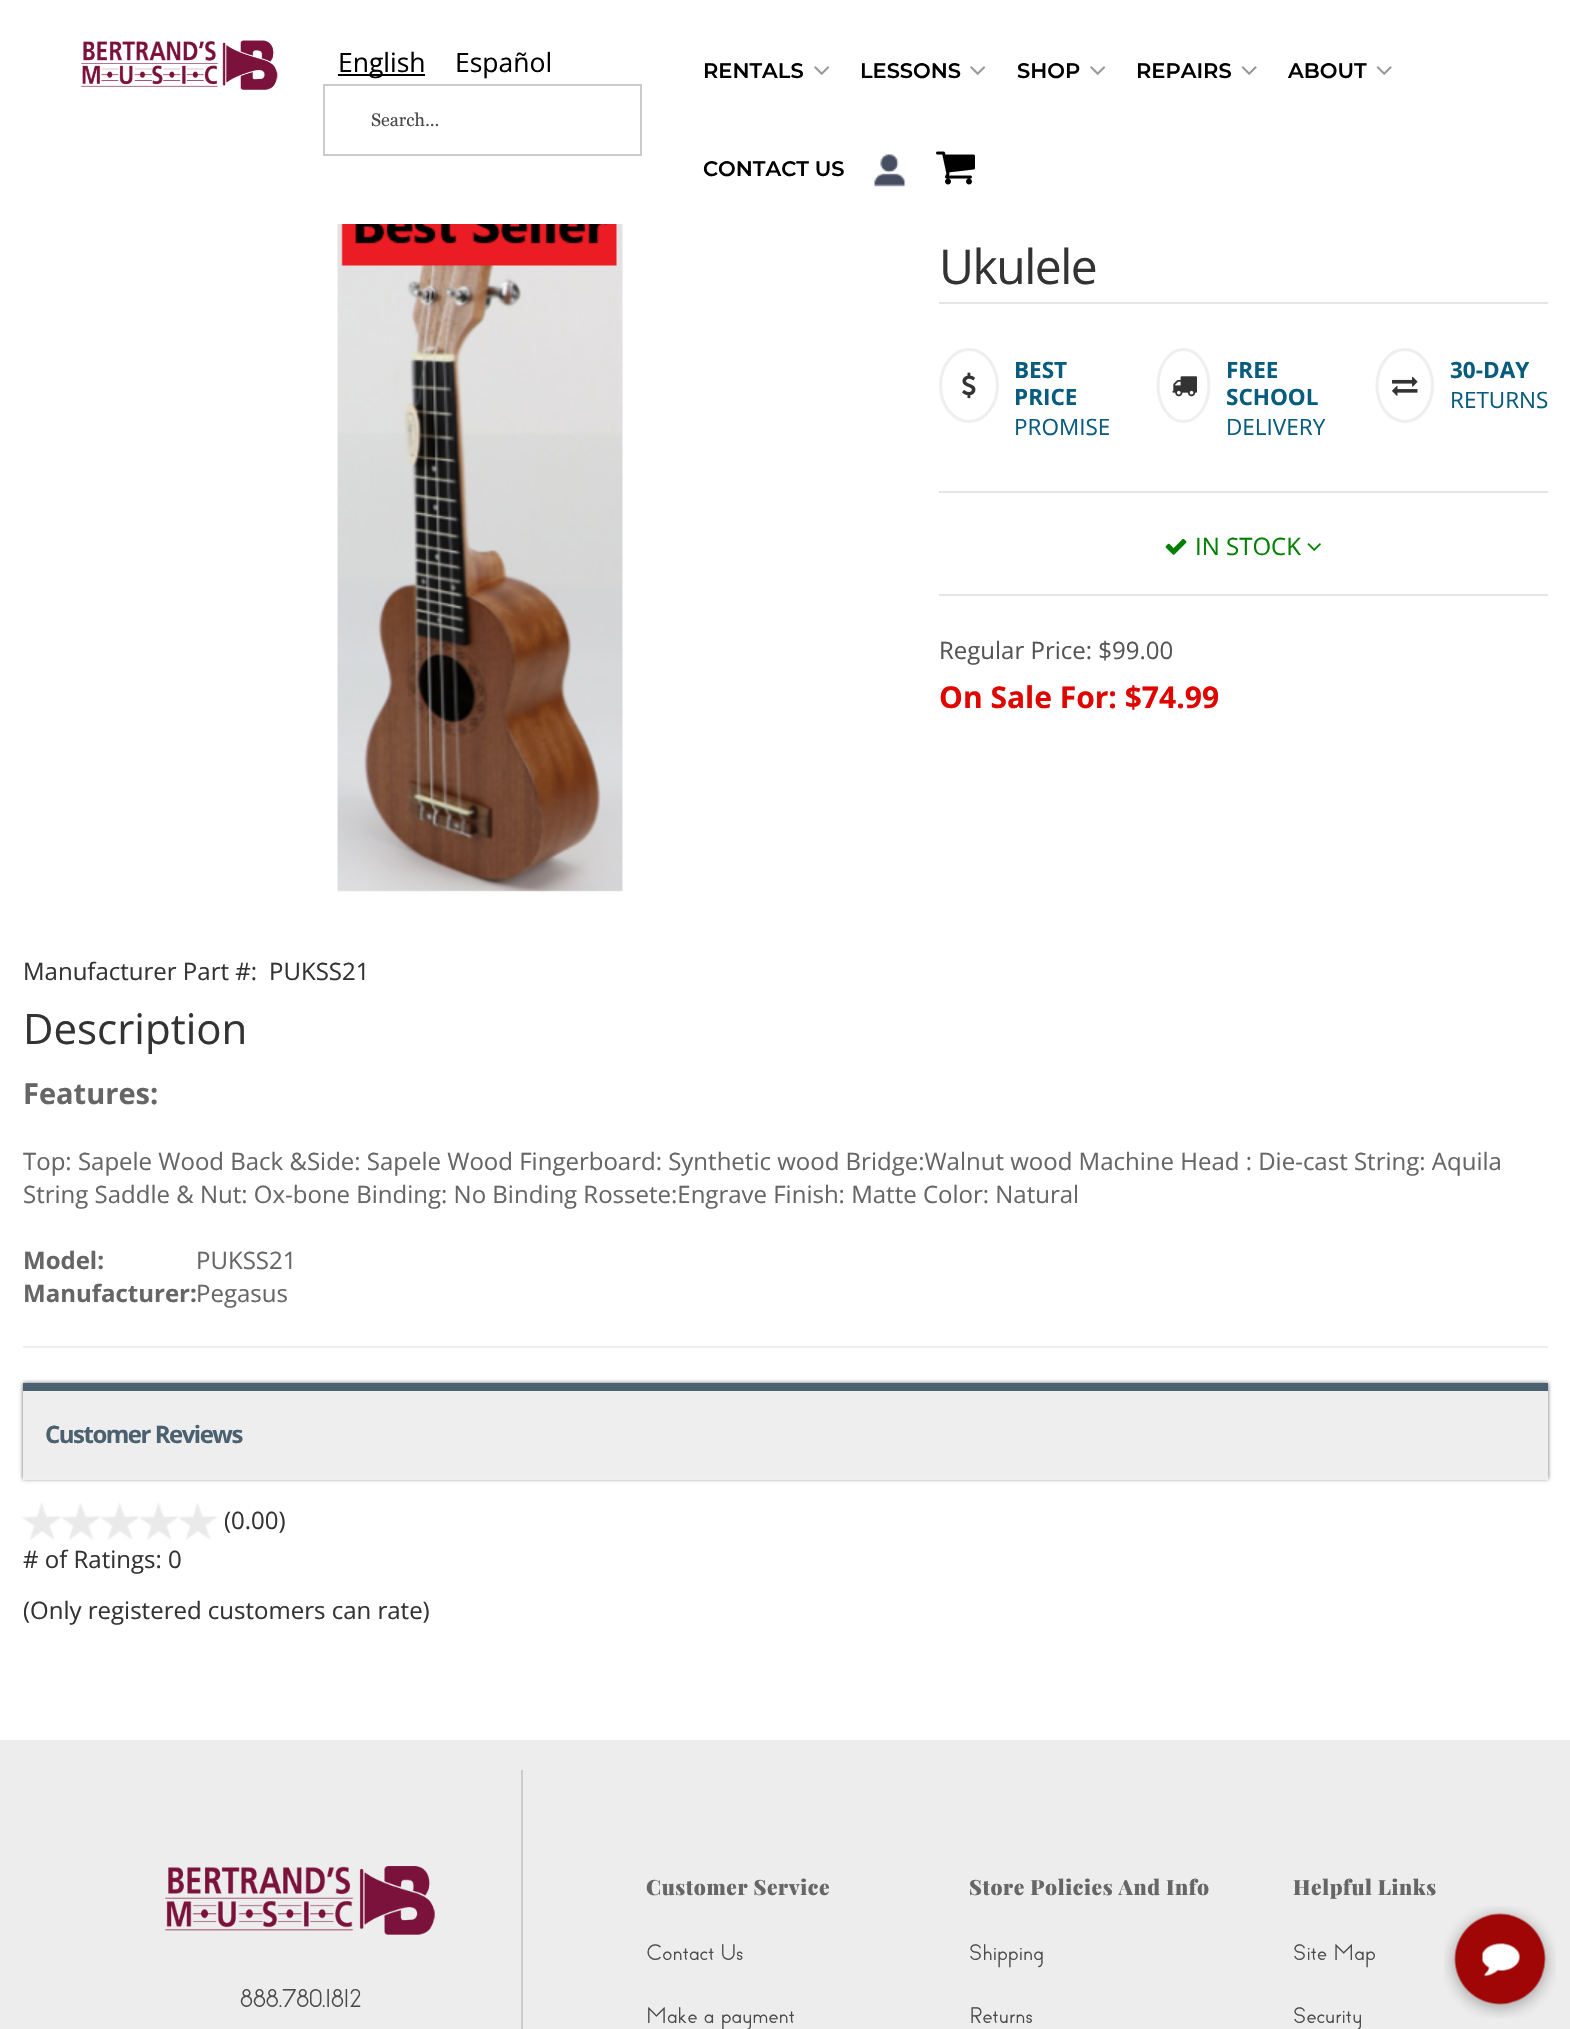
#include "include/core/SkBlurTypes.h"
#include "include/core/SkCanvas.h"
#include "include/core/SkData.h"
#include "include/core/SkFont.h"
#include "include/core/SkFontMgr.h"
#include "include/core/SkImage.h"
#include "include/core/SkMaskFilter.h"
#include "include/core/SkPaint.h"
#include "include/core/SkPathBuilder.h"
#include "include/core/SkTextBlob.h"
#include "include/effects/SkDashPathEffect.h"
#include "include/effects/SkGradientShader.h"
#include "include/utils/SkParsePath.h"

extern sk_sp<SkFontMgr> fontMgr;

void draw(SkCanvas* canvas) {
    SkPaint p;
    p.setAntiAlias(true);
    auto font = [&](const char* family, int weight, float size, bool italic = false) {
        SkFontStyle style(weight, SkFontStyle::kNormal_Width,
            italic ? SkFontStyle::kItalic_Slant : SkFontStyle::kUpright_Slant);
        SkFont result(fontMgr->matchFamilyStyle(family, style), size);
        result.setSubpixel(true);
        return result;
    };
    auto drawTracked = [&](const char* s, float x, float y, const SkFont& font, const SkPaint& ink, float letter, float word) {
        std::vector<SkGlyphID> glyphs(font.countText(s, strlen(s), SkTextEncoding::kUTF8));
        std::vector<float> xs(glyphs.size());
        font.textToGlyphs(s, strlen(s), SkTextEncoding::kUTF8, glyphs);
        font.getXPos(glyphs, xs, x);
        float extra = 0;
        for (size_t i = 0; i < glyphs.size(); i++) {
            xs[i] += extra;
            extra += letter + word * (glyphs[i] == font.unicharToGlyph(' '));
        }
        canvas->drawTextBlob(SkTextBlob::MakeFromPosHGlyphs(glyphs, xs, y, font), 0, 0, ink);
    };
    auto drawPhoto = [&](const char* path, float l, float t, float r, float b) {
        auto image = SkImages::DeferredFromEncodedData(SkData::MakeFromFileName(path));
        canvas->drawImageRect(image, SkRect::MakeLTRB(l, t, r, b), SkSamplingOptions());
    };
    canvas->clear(0xFFFFFFFF);
    drawPhoto("media/1.png", 80, 40, 278, 90);
    p.setColor(0xFF000000);
    canvas->drawRect(SkRect::MakeLTRB(338, 74, 425, 76), p);
    auto font1 = font("Open Sans", 400, 26.5f);
    canvas->drawString("English", 338, 72, font1, p);
    canvas->drawString("Español", 455, 72, font1, p);
    p.setStyle(SkPaint::kStroke_Style);
    p.setStrokeWidth(2);
    p.setColor(0xFFCCCCCC);
    canvas->drawRect(SkRect::MakeLTRB(324, 85, 641, 155), p);
    auto font2 = font("Georgia", 400, 18);
    p.setStyle(SkPaint::kFill_Style);
    p.setColor(0xFF4A4A4A);
    canvas->drawString("Search...", 371, 126, font2, p);
    auto font3 = font("Montserrat", 600, 21);
    p.setColor(0xFF000000);
    canvas->drawString("RENTALS", 703, 78, font3, p);
    drawPhoto("media/2.png", 814, 66, 830, 75);
    canvas->drawString("LESSONS", 860, 78, font3, p);
    drawPhoto("media/2.png", 970, 66, 986, 75);
    canvas->drawString("SHOP", 1017, 78, font3, p);
    drawPhoto("media/2.png", 1090, 66, 1106, 75);
    canvas->drawString("REPAIRS", 1136, 78, font3, p);
    drawPhoto("media/3.png", 1241, 66, 1257, 75);
    canvas->drawString("ABOUT", 1288, 78, font3, p);
    drawPhoto("media/3.png", 1376, 66, 1392, 75);
    canvas->drawString("CONTACT US", 703, 176, font3, p);
    drawPhoto("media/4.png", 874, 154, 906, 187);
    drawPhoto("media/5.png", 936, 151, 975, 185);
    p.setColor(0xFFE5E5E5);
    canvas->drawRect(SkRect::MakeLTRB(939, 302, 1548, 304), p);
    auto font4 = font("Open Sans", 400, 48);
    p.setColor(0xFF333333);
    drawTracked("Ukulele", 939, 284, font4, p, -1.5f, 0);
    p.setColor(0xFFE5E5E5);
    canvas->drawRect(SkRect::MakeLTRB(939, 491, 1548, 493), p);
    p.setStyle(SkPaint::kStroke_Style);
    p.setStrokeWidth(3);
    p.setColor(0xFFEFEFEF);
    canvas->drawPath(SkPathBuilder().moveTo(969, 349.5f).cubicTo(984.5f, 349.5f, 997.5f, 365.5f, 997.5f, 385.5f).cubicTo(997.5f, 405.5f, 984.5f, 421.5f, 969, 421.5f).cubicTo(953.5f, 421.5f, 940.5f, 405.5f, 940.5f, 385.5f).cubicTo(940.5f, 365.5f, 953.5f, 349.5f, 969, 349.5f).close().detach(), p);
    drawPhoto("media/6.png", 962, 372, 976, 399);
    auto font5 = font("Open Sans", 700, 22.5f);
    p.setStyle(SkPaint::kFill_Style);
    p.setColor(0xFF085C7D);
    canvas->drawString("BEST", 1014, 378, font5, p);
    canvas->drawString("PRICE", 1014, 405, font5, p);
    auto font6 = font("Open Sans", 400, 22.5f);
    canvas->drawString("PROMISE", 1014, 435, font6, p);
    p.setStyle(SkPaint::kStroke_Style);
    p.setColor(0xFFEFEFEF);
    canvas->drawPath(SkPathBuilder().moveTo(1183.5f, 349.5f).cubicTo(1197.5f, 349.5f, 1209, 365.5f, 1209, 385.5f).cubicTo(1209, 405.5f, 1197.5f, 421.5f, 1183.5f, 421.5f).cubicTo(1169.5f, 421.5f, 1158, 405.5f, 1158, 385.5f).cubicTo(1158, 365.5f, 1169.5f, 349.5f, 1183.5f, 349.5f).close().detach(), p);
    drawPhoto("media/7.png", 1172, 376, 1197, 397);
    p.setStyle(SkPaint::kFill_Style);
    p.setColor(0xFF085C7D);
    canvas->drawString("FREE", 1226, 378, font5, p);
    canvas->drawString("SCHOOL", 1226, 405, font5, p);
    canvas->drawString("DELIVERY", 1226, 435, font6, p);
    p.setStyle(SkPaint::kStroke_Style);
    p.setColor(0xFFEFEFEF);
    canvas->drawPath(SkPathBuilder().moveTo(1405, 349.5f).cubicTo(1420, 349.5f, 1432.5f, 365.5f, 1432.5f, 385.5f).cubicTo(1432.5f, 405.5f, 1420, 421.5f, 1405, 421.5f).cubicTo(1389.5f, 421.5f, 1377, 405.5f, 1377, 385.5f).cubicTo(1377, 365.5f, 1389.5f, 349.5f, 1405, 349.5f).close().detach(), p);
    drawPhoto("media/8.png", 1392, 376, 1418, 396);
    p.setStyle(SkPaint::kFill_Style);
    p.setColor(0xFF085C7D);
    canvas->drawString("30-DAY", 1450, 378, font5, p);
    canvas->drawString("RETURNS", 1450, 408, font6, p);
    p.setColor(0xFFE5E5E5);
    canvas->drawRect(SkRect::MakeLTRB(939, 594, 1548, 596), p);
    drawPhoto("media/9.png", 1165, 538, 1187, 555);
    auto font7 = font("Open Sans", 400, 24);
    p.setColor(0xFF008000);
    canvas->drawString("IN STOCK", 1195, 555, font7, p);
    drawPhoto("media/10.png", 1307, 543, 1321, 551);
    p.setColor(0xFF555555);
    canvas->drawString("Regular Price: $99.00", 939, 659, font7, p);
    auto font8 = font("Open Sans", 700, 30);
    p.setColor(0xFFE00600);
    canvas->drawString("On Sale For: $74.99", 939, 708, font8, p);
    drawPhoto("media/11.png", 337, 224, 623, 892);
    p.setColor(0xFF333333);
    canvas->drawString("Manufacturer Part #:", 23, 980, font7, p);
    canvas->drawString("PUKSS21", 269, 980, font7, p);
    auto font9 = font("Open Sans", 400, 42);
    canvas->drawString("Description", 23, 1044, font9, p);
    auto font10 = font("Open Sans", 700, 29);
    p.setColor(0xFF666666);
    canvas->drawString("Features:", 23, 1104, font10, p);
    canvas->drawString("Top: Sapele Wood Back &Side: Sapele Wood Fingerboard: Synthetic wood Bridge:Walnut wood Machine Head : Die-cast String: Aquila", 23, 1170, font7, p);
    canvas->drawString("String Saddle & Nut: Ox-bone Binding: No Binding Rossete:Engrave Finish: Matte Color: Natural", 23, 1203, font7, p);
    auto font11 = font("Open Sans", 700, 24);
    canvas->drawString("Model:", 23, 1269, font11, p);
    canvas->drawString("PUKSS21", 196, 1269, font7, p);
    canvas->drawString("Manufacturer:", 23, 1302, font11, p);
    canvas->drawString("Pegasus", 196, 1302, font7, p);
    p.setColor(0xFFEEEEEE);
    canvas->drawRect(SkRect::MakeLTRB(23, 1346, 1548, 1348), p);
    p.setColor(0x99000000);
    p.setMaskFilter(SkMaskFilter::MakeBlur(kNormal_SkBlurStyle, 2));
    canvas->drawRect(SkRect::MakeLTRB(23, 1383, 1548, 1479), p);
    p.setMaskFilter(nullptr);
    {
        const struct { float l, t, r, b; SkColor color; } items[] = {
            {23, 1391, 1548, 1478, 0xFFEEEEEE},
            {23, 1383, 1548, 1391, 0xFF4B616F},
            {23, 1478, 1548, 1480, 0xFFEFEFEF},
        };
        for (auto [l, t, r, b, color] : items) {
            p.setColor(color);
            canvas->drawRect(SkRect::MakeLTRB(l, t, r, b), p);
        }
    }
    p.setColor(0xFF4B616F);
    drawTracked("Customer Reviews", 45, 1443, font11, p, -1.5f, 0);
    drawPhoto("media/12.png", 22, 1503, 62, 1540);
    drawPhoto("media/13.png", 62, 1503, 101, 1540);
    drawPhoto("media/13.png", 101, 1503, 140, 1540);
    drawPhoto("media/13.png", 140, 1503, 179, 1540);
    drawPhoto("media/13.png", 179, 1503, 218, 1540);
    p.setColor(0xFF333333);
    {
        const struct { const char* s; float x, y; } items[] = {
            {"(0.00)", 224, 1529},
            {"# of Ratings: 0", 23, 1568},
            {"(Only registered customers can rate)", 23, 1619},
        };
        for (auto [s, x, y] : items) {
            canvas->drawString(s, x, y, font7, p);
        }
    }
    p.setColor(0xFFEDEDED);
    canvas->drawRect(SkRect::MakeLTRB(0, 1740, 1570, 2029), p);
    drawPhoto("media/14.png", 165, 1866, 435, 1935);
    p.setColor(0xFFCBCBCB);
    canvas->drawRect(SkRect::MakeLTRB(521, 1770, 523, 2029), p);
    auto font12 = font("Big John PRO", 400, 24);
    p.setColor(0xFF4A4A4A);
    canvas->drawString("888.780.1812", 240, 2007, font12, p);
    auto font13 = font("Playfair Display", 900, 21);
    p.setColor(0xFF666666);
    drawTracked("Customer Service", 646, 1895, font13, p, 0.6f, 0);
    auto font14 = font("Big John PRO", 400, 21);
    p.setColor(0xFF4A4A4A);
    canvas->drawString("Contact Us", 646, 1960, font14, p);
    canvas->drawString("Make a payment", 646, 2023, font14, p);
    p.setColor(0xFF666666);
    drawTracked("Store Policies And Info", 969, 1895, font13, p, 0.6f, 0);
    p.setColor(0xFF4A4A4A);
    canvas->drawString("Shipping", 969, 1960, font14, p);
    canvas->drawString("Returns", 969, 2023, font14, p);
    p.setColor(0xFF666666);
    drawTracked("Helpful Links", 1293, 1895, font13, p, 0.6f, 0);
    p.setColor(0xFF4A4A4A);
    canvas->drawString("Site Map", 1293, 1960, font14, p);
    canvas->drawString("Security", 1293, 2023, font14, p);
    drawPhoto("media/15.png", 1444, 1906, 1556, 2018);
}
